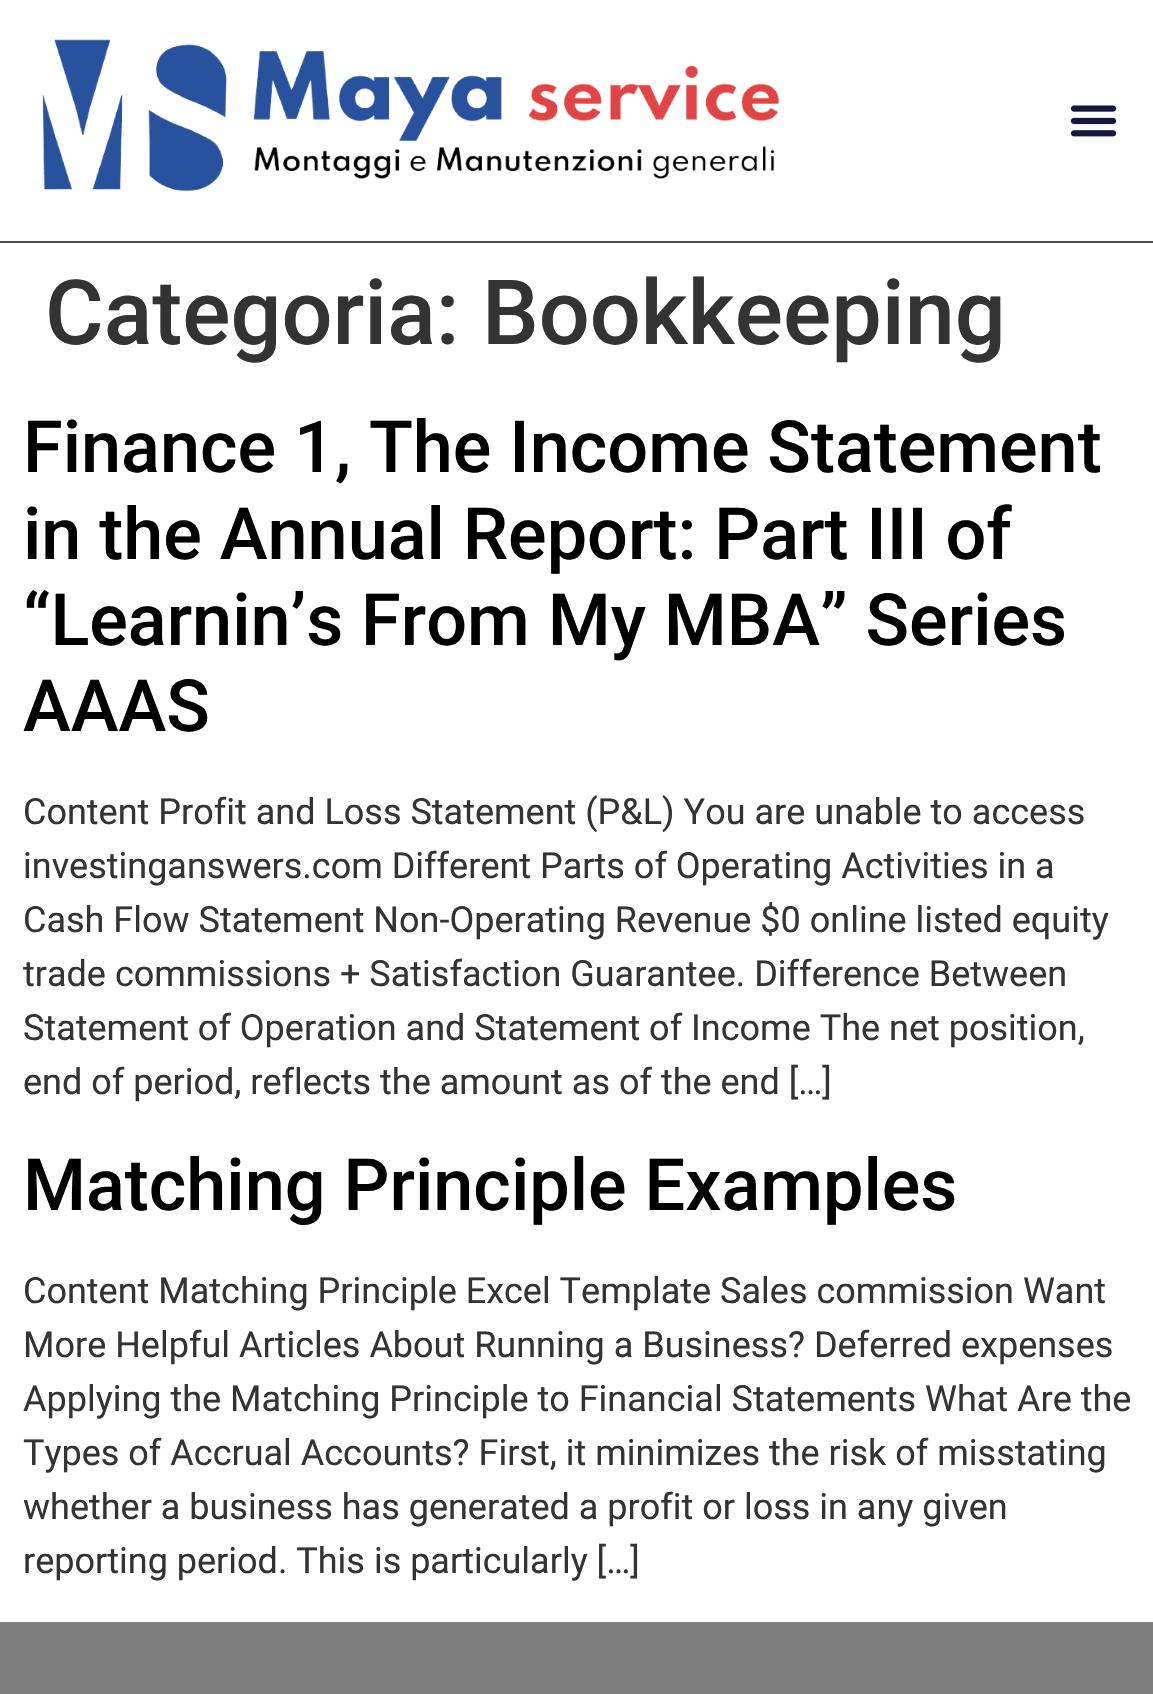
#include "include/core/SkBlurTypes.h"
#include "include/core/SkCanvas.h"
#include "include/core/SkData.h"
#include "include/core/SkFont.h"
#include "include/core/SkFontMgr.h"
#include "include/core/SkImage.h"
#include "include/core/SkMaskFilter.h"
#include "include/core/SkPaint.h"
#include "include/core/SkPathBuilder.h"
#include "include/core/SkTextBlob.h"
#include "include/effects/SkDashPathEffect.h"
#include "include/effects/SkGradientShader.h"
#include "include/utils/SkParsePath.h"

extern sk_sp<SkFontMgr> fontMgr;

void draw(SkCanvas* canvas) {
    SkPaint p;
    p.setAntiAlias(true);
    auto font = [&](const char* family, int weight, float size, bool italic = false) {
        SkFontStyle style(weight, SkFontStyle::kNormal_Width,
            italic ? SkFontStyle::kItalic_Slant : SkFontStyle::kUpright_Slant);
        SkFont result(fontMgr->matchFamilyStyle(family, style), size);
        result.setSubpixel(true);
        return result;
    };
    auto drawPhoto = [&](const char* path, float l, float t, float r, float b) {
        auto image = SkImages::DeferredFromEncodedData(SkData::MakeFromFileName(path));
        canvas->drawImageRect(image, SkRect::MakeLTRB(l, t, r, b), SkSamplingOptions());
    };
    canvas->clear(0xFFFFFFFF);
    p.setColor(0xFF4D4D4D);
    canvas->drawRect(SkRect::MakeLTRB(0, 241, 1153, 243), p);
    drawPhoto("media/1.png", 42, 39, 780, 192);
    drawPhoto("media/2.png", 1070, 105, 1117, 137);
    auto font1 = font("Roboto", 500, 90);
    p.setColor(0xFF333333);
    canvas->drawString("Categoria: Bookkeeping", 45, 344, font1, p);
    auto font2 = font("Roboto", 500, 72);
    p.setColor(0xFF000000);
    {
        const struct { const char* s; float x, y; } items[] = {
            {"Finance 1, The Income Statement", 23, 472},
            {"in the Annual Report: Part III of", 23, 559},
            {"“Learnin’s From My MBA” Series", 23, 645},
            {"AAAS", 23, 731},
        };
        for (auto [s, x, y] : items) {
            canvas->drawString(s, x, y, font2, p);
        }
    }
    auto font3 = font("Roboto", 400, 36);
    p.setColor(0xFF333333);
    {
        const struct { const char* s; float x, y; } items[] = {
            {"Content Profit and Loss Statement (P&L) You are unable to access", 23, 824},
            {"investinganswers.com Different Parts of Operating Activities in a", 23, 878},
            {"Cash Flow Statement Non-Operating Revenue $0 online listed equity", 23, 932},
            {"trade commissions + Satisfaction Guarantee. Difference Between", 23, 986},
            {"Statement of Operation and Statement of Income The net position,", 23, 1040},
            {"end of period, reflects the amount as of the end […]", 23, 1094},
        };
        for (auto [s, x, y] : items) {
            canvas->drawString(s, x, y, font3, p);
        }
    }
    p.setColor(0xFF000000);
    canvas->drawString("Matching Principle Examples", 23, 1210, font2, p);
    p.setColor(0xFF333333);
    {
        const struct { const char* s; float x, y; } items[] = {
            {"Content Matching Principle Excel Template Sales commission Want", 23, 1303},
            {"More Helpful Articles About Running a Business? Deferred expenses", 23, 1357},
            {"Applying the Matching Principle to Financial Statements What Are the", 23, 1411},
            {"Types of Accrual Accounts? First, it minimizes the risk of misstating", 23, 1465},
            {"whether a business has generated a profit or loss in any given", 23, 1519},
            {"reporting period. This is particularly […]", 23, 1573},
        };
        for (auto [s, x, y] : items) {
            canvas->drawString(s, x, y, font3, p);
        }
    }
    p.setColor(0xFF7E7E7E);
    canvas->drawRect(SkRect::MakeLTRB(0, 1622, 1153, 1694), p);
}
